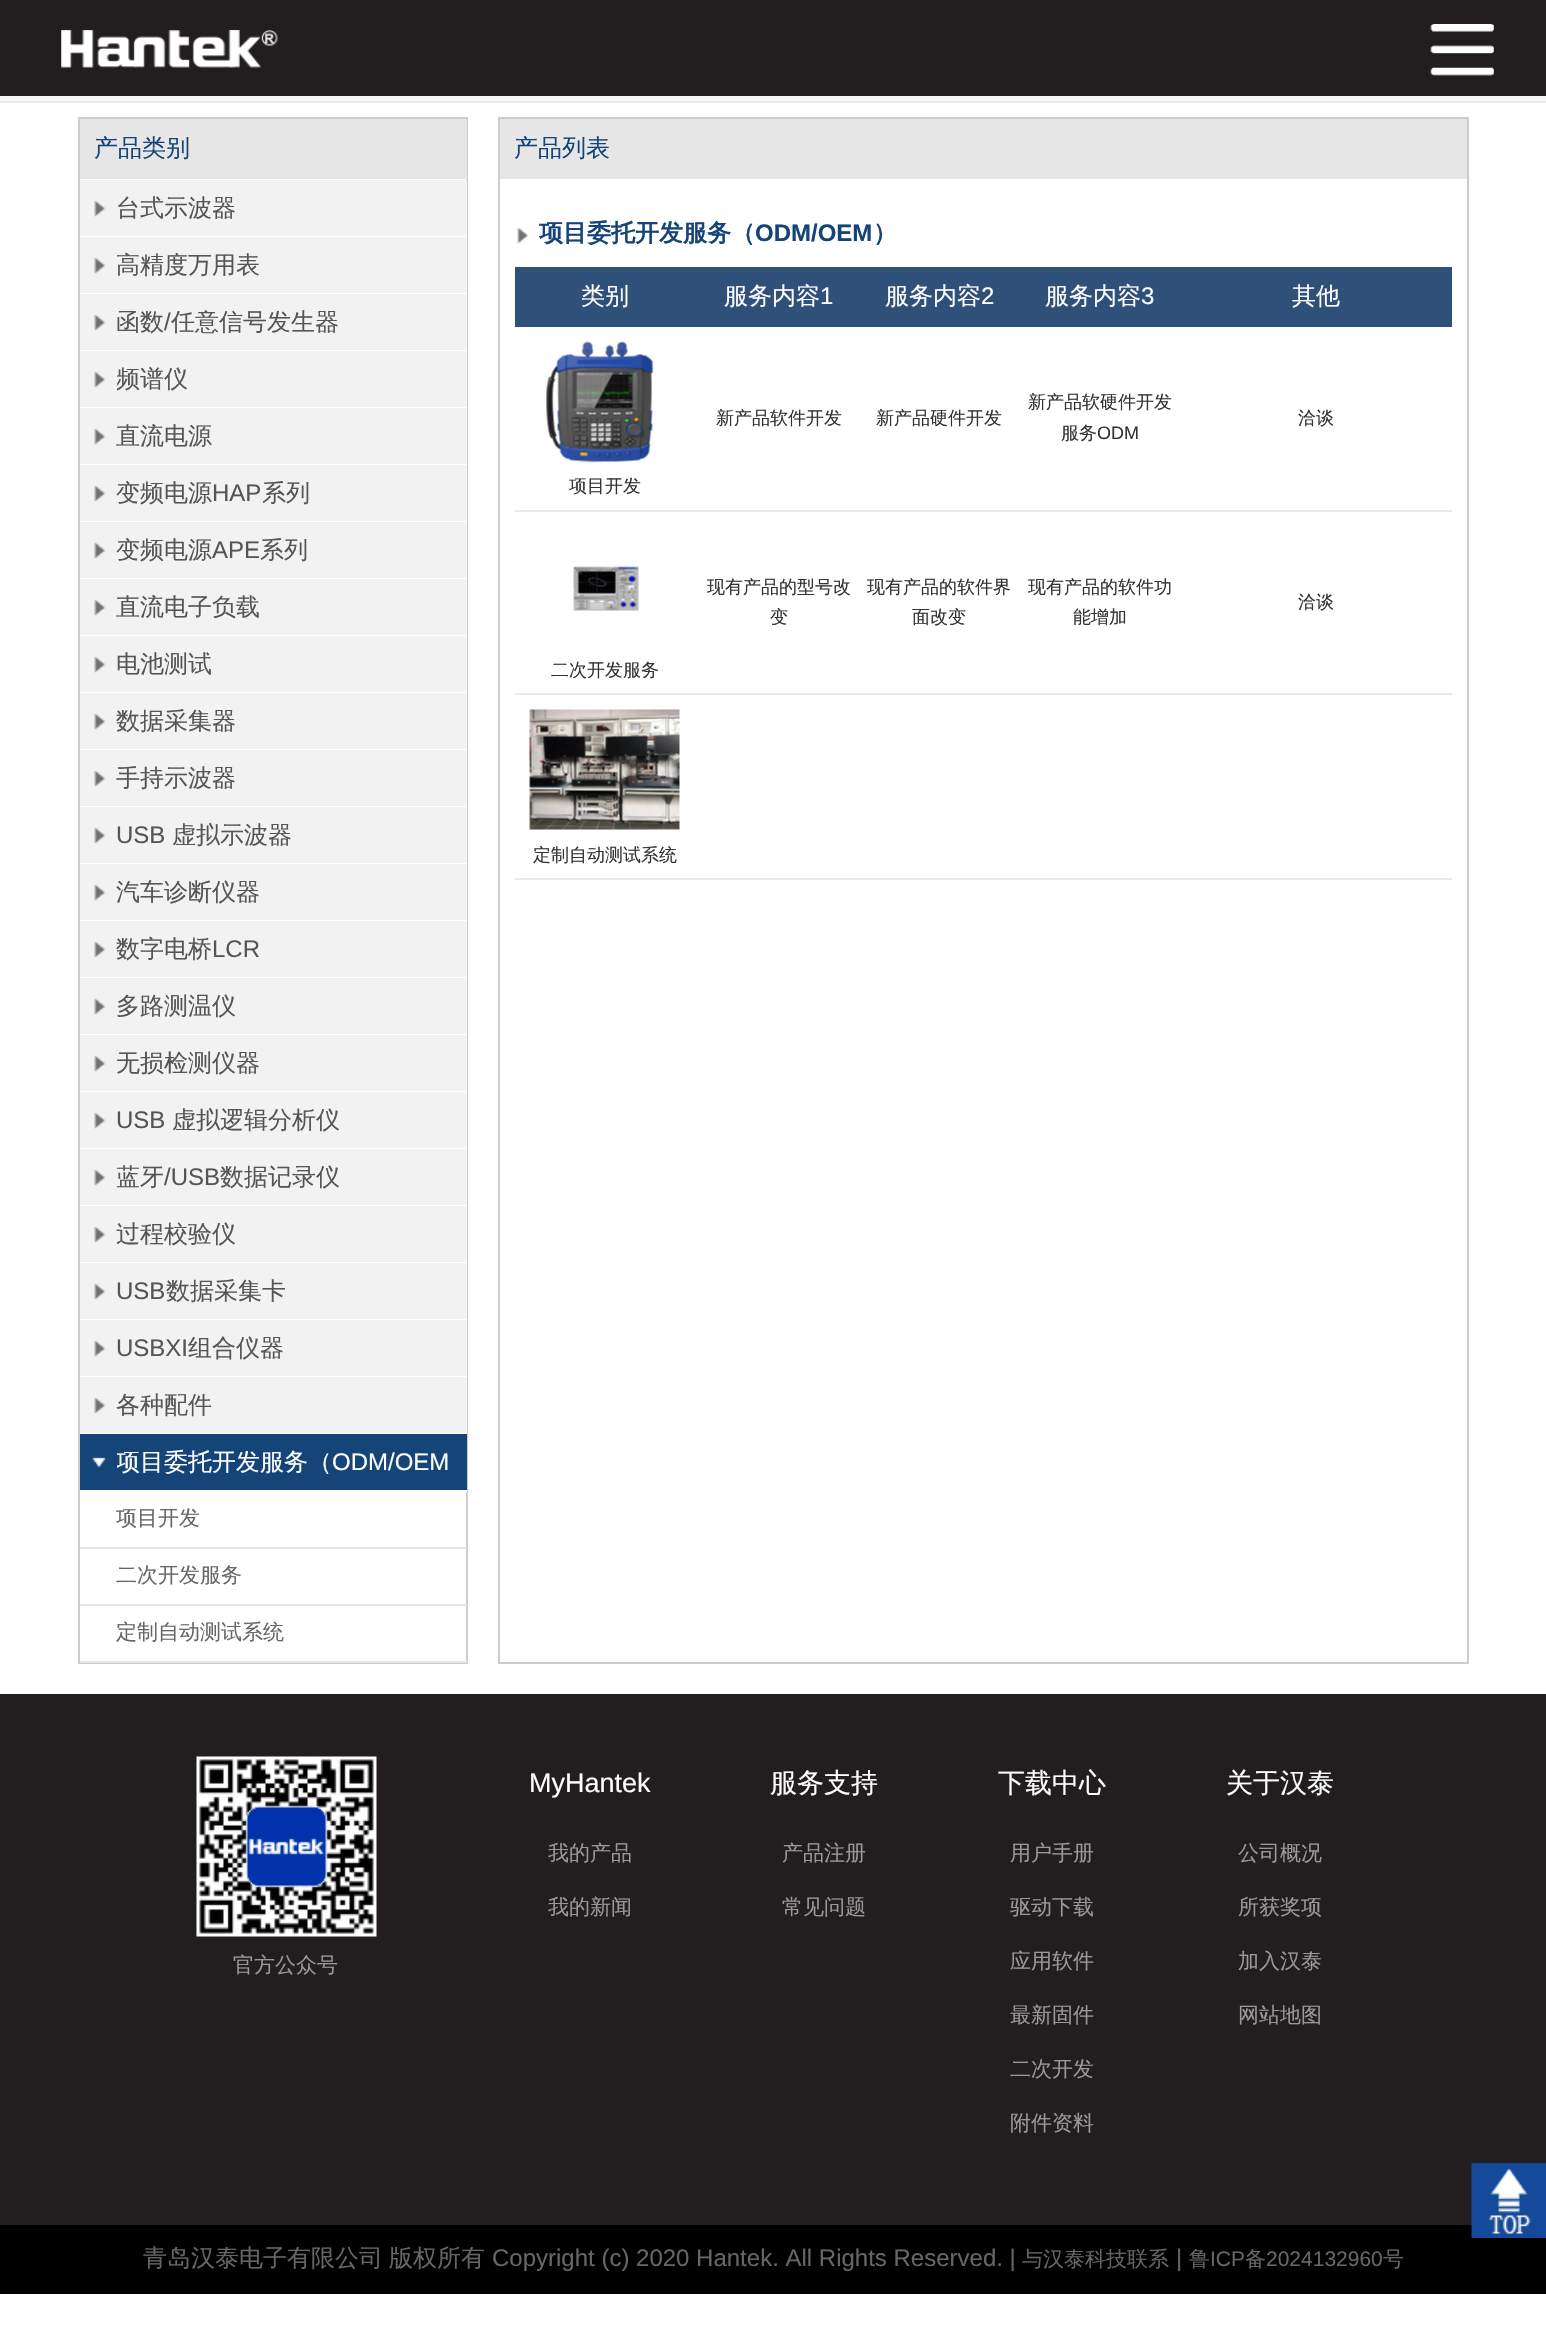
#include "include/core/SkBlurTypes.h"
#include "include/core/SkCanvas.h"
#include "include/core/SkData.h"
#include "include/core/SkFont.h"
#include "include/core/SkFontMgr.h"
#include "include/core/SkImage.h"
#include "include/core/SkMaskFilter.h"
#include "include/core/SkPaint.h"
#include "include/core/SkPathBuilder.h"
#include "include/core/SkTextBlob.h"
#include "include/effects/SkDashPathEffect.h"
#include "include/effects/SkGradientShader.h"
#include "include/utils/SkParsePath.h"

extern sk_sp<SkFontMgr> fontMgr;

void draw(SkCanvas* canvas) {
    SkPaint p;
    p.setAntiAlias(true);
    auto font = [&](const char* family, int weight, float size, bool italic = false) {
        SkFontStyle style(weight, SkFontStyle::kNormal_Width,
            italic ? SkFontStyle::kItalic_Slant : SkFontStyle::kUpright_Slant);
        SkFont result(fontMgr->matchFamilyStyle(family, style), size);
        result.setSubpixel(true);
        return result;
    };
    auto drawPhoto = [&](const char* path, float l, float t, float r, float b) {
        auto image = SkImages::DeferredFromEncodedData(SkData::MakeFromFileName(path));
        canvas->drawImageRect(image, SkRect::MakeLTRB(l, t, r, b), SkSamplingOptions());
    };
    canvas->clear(0xFFFFFFFF);
    p.setColor(0xFF221E1F);
    canvas->drawRect(SkRect::MakeLTRB(0, 0, 1546, 96), p);
    drawPhoto("media/1.png", 61, 30, 278, 68);
    drawPhoto("media/2.png", 1430, 24, 1494, 76);
    p.setColor(0xFFF6F6F6);
    canvas->drawRect(SkRect::MakeLTRB(0, 96, 1546, 101), p);
    p.setColor(0xFFEBEBEB);
    canvas->drawRect(SkRect::MakeLTRB(0, 101, 1546, 103), p);
    p.setStyle(SkPaint::kStroke_Style);
    p.setStrokeWidth(2);
    p.setColor(0xFFCCCCCC);
    canvas->drawRect(SkRect::MakeLTRB(79, 118, 467, 1663), p);
    p.setStyle(SkPaint::kFill_Style);
    p.setColor(0xFFE6E6E6);
    canvas->drawRect(SkRect::MakeLTRB(80, 119, 467, 179), p);
    auto font1 = font("WenQuanYi Zen Hei", 500, 24);
    p.setColor(0xFF154479);
    canvas->drawString("产品类别", 94, 156, font1, p);
    p.setColor(0xFFF2F2F2);
    canvas->drawRect(SkRect::MakeLTRB(80, 180, 467, 236), p);
    drawPhoto("media/3.png", 94, 200, 106, 217);
    p.setColor(0xFFFFFFFF);
    canvas->drawRect(SkRect::MakeLTRB(466, 236, 467, 237), p);
    p.setColor(0xFF555555);
    canvas->drawString("台式示波器", 116, 216, font1, p);
    p.setColor(0xFFF2F2F2);
    canvas->drawRect(SkRect::MakeLTRB(80, 237, 467, 293), p);
    drawPhoto("media/3.png", 94, 257, 106, 274);
    p.setColor(0xFFFFFFFF);
    canvas->drawRect(SkRect::MakeLTRB(466, 293, 467, 294), p);
    p.setColor(0xFF555555);
    canvas->drawString("高精度万用表", 116, 273, font1, p);
    p.setColor(0xFFF2F2F2);
    canvas->drawRect(SkRect::MakeLTRB(80, 294, 467, 350), p);
    drawPhoto("media/3.png", 94, 314, 106, 331);
    p.setColor(0xFFFFFFFF);
    canvas->drawRect(SkRect::MakeLTRB(466, 350, 467, 351), p);
    p.setColor(0xFF555555);
    canvas->drawString("函数", 116, 330, font1, p);
    auto font2 = font("Liberation Sans", 400, 24);
    canvas->drawString("/", 164, 330, font2, p);
    canvas->drawString("任意信号发生器", 171, 330, font1, p);
    p.setColor(0xFFF2F2F2);
    canvas->drawRect(SkRect::MakeLTRB(80, 351, 467, 407), p);
    drawPhoto("media/3.png", 94, 371, 106, 388);
    p.setColor(0xFFFFFFFF);
    canvas->drawRect(SkRect::MakeLTRB(466, 407, 467, 408), p);
    canvas->save();
    canvas->clipRect(SkRect::MakeLTRB(117, 351, 467, 407));
    p.setColor(0xFF555555);
    canvas->drawString("频谱仪", 116, 387, font1, p);
    canvas->restore();
    p.setColor(0xFFF2F2F2);
    canvas->drawRect(SkRect::MakeLTRB(80, 408, 467, 464), p);
    drawPhoto("media/3.png", 94, 428, 106, 445);
    p.setColor(0xFFFFFFFF);
    canvas->drawRect(SkRect::MakeLTRB(466, 464, 467, 465), p);
    p.setColor(0xFF555555);
    canvas->drawString("直流电源", 116, 444, font1, p);
    p.setColor(0xFFF2F2F2);
    canvas->drawRect(SkRect::MakeLTRB(80, 465, 467, 521), p);
    drawPhoto("media/3.png", 94, 485, 106, 502);
    p.setColor(0xFFFFFFFF);
    canvas->drawRect(SkRect::MakeLTRB(466, 521, 467, 522), p);
    p.setColor(0xFF555555);
    canvas->drawString("变频电源", 116, 501, font1, p);
    canvas->drawString("HAP", 212, 501, font2, p);
    canvas->drawString("系列", 262, 501, font1, p);
    p.setColor(0xFFF2F2F2);
    canvas->drawRect(SkRect::MakeLTRB(80, 522, 467, 578), p);
    drawPhoto("media/3.png", 94, 542, 106, 559);
    p.setColor(0xFFFFFFFF);
    canvas->drawRect(SkRect::MakeLTRB(466, 578, 467, 579), p);
    p.setColor(0xFF555555);
    canvas->drawString("变频电源", 116, 558, font1, p);
    canvas->drawString("APE", 212, 558, font2, p);
    canvas->drawString("系列", 260, 558, font1, p);
    p.setColor(0xFFF2F2F2);
    canvas->drawRect(SkRect::MakeLTRB(80, 579, 467, 635), p);
    drawPhoto("media/3.png", 94, 599, 106, 616);
    p.setColor(0xFFFFFFFF);
    canvas->drawRect(SkRect::MakeLTRB(466, 635, 467, 636), p);
    p.setColor(0xFF555555);
    canvas->drawString("直流电子负载", 116, 615, font1, p);
    p.setColor(0xFFF2F2F2);
    canvas->drawRect(SkRect::MakeLTRB(80, 636, 467, 692), p);
    drawPhoto("media/3.png", 94, 656, 106, 673);
    p.setColor(0xFFFFFFFF);
    canvas->drawRect(SkRect::MakeLTRB(466, 692, 467, 693), p);
    p.setColor(0xFF555555);
    canvas->drawString("电池测试", 116, 672, font1, p);
    p.setColor(0xFFF2F2F2);
    canvas->drawRect(SkRect::MakeLTRB(80, 693, 467, 749), p);
    drawPhoto("media/3.png", 94, 713, 106, 730);
    p.setColor(0xFFFFFFFF);
    canvas->drawRect(SkRect::MakeLTRB(466, 749, 467, 750), p);
    p.setColor(0xFF555555);
    canvas->drawString("数据采集器", 116, 729, font1, p);
    p.setColor(0xFFF2F2F2);
    canvas->drawRect(SkRect::MakeLTRB(80, 750, 467, 806), p);
    drawPhoto("media/3.png", 94, 770, 106, 787);
    p.setColor(0xFFFFFFFF);
    canvas->drawRect(SkRect::MakeLTRB(466, 806, 467, 807), p);
    p.setColor(0xFF555555);
    canvas->drawString("手持示波器", 116, 786, font1, p);
    p.setColor(0xFFF2F2F2);
    canvas->drawRect(SkRect::MakeLTRB(80, 807, 467, 863), p);
    drawPhoto("media/3.png", 94, 827, 106, 844);
    p.setColor(0xFFFFFFFF);
    canvas->drawRect(SkRect::MakeLTRB(466, 863, 467, 864), p);
    p.setColor(0xFF555555);
    canvas->drawString("USB", 116, 843, font2, p);
    canvas->drawString("虚拟示波器", 172, 843, font1, p);
    p.setColor(0xFFF2F2F2);
    canvas->drawRect(SkRect::MakeLTRB(80, 864, 467, 920), p);
    drawPhoto("media/3.png", 94, 884, 106, 901);
    p.setColor(0xFFFFFFFF);
    canvas->drawRect(SkRect::MakeLTRB(466, 920, 467, 921), p);
    p.setColor(0xFF555555);
    canvas->drawString("汽车诊断仪器", 116, 900, font1, p);
    p.setColor(0xFFF2F2F2);
    canvas->drawRect(SkRect::MakeLTRB(80, 921, 467, 977), p);
    drawPhoto("media/3.png", 94, 941, 106, 958);
    p.setColor(0xFFFFFFFF);
    canvas->drawRect(SkRect::MakeLTRB(466, 977, 467, 978), p);
    p.setColor(0xFF555555);
    canvas->drawString("数字电桥", 116, 957, font1, p);
    canvas->drawString("LCR", 212, 957, font2, p);
    p.setColor(0xFFF2F2F2);
    canvas->drawRect(SkRect::MakeLTRB(80, 978, 467, 1034), p);
    drawPhoto("media/3.png", 94, 998, 106, 1015);
    p.setColor(0xFFFFFFFF);
    canvas->drawRect(SkRect::MakeLTRB(466, 1034, 467, 1035), p);
    p.setColor(0xFF555555);
    canvas->drawString("多路测温仪", 116, 1014, font1, p);
    p.setColor(0xFFF2F2F2);
    canvas->drawRect(SkRect::MakeLTRB(80, 1035, 467, 1091), p);
    drawPhoto("media/3.png", 94, 1055, 106, 1072);
    p.setColor(0xFFFFFFFF);
    canvas->drawRect(SkRect::MakeLTRB(466, 1091, 467, 1092), p);
    p.setColor(0xFF555555);
    canvas->drawString("无损检测仪器", 116, 1071, font1, p);
    p.setColor(0xFFF2F2F2);
    canvas->drawRect(SkRect::MakeLTRB(80, 1092, 467, 1148), p);
    drawPhoto("media/3.png", 94, 1112, 106, 1129);
    p.setColor(0xFFFFFFFF);
    canvas->drawRect(SkRect::MakeLTRB(466, 1148, 467, 1149), p);
    p.setColor(0xFF555555);
    canvas->drawString("USB", 116, 1128, font2, p);
    canvas->drawString("虚拟逻辑分析仪", 172, 1128, font1, p);
    p.setColor(0xFFF2F2F2);
    canvas->drawRect(SkRect::MakeLTRB(80, 1149, 467, 1205), p);
    drawPhoto("media/3.png", 94, 1169, 106, 1186);
    p.setColor(0xFFFFFFFF);
    canvas->drawRect(SkRect::MakeLTRB(466, 1205, 467, 1206), p);
    canvas->save();
    canvas->clipRect(SkRect::MakeLTRB(117, 1149, 467, 1205));
    p.setColor(0xFF555555);
    canvas->drawString("蓝牙", 116, 1185, font1, p);
    canvas->restore();
    canvas->drawString("/USB", 164, 1185, font2, p);
    canvas->drawString("数据记录仪", 220, 1185, font1, p);
    p.setColor(0xFFF2F2F2);
    canvas->drawRect(SkRect::MakeLTRB(80, 1206, 467, 1262), p);
    drawPhoto("media/3.png", 94, 1226, 106, 1243);
    p.setColor(0xFFFFFFFF);
    canvas->drawRect(SkRect::MakeLTRB(466, 1262, 467, 1263), p);
    p.setColor(0xFF555555);
    canvas->drawString("过程校验仪", 116, 1242, font1, p);
    p.setColor(0xFFF2F2F2);
    canvas->drawRect(SkRect::MakeLTRB(80, 1263, 467, 1319), p);
    drawPhoto("media/3.png", 94, 1283, 106, 1300);
    p.setColor(0xFFFFFFFF);
    canvas->drawRect(SkRect::MakeLTRB(466, 1319, 467, 1320), p);
    p.setColor(0xFF555555);
    canvas->drawString("USB", 116, 1299, font2, p);
    canvas->drawString("数据采集卡", 166, 1299, font1, p);
    p.setColor(0xFFF2F2F2);
    canvas->drawRect(SkRect::MakeLTRB(80, 1320, 467, 1376), p);
    drawPhoto("media/3.png", 94, 1340, 106, 1357);
    p.setColor(0xFFFFFFFF);
    canvas->drawRect(SkRect::MakeLTRB(466, 1376, 467, 1377), p);
    p.setColor(0xFF555555);
    canvas->drawString("USBXI", 116, 1356, font2, p);
    canvas->drawString("组合仪器", 188, 1356, font1, p);
    p.setColor(0xFFF2F2F2);
    canvas->drawRect(SkRect::MakeLTRB(80, 1377, 467, 1433), p);
    drawPhoto("media/3.png", 94, 1397, 106, 1414);
    p.setColor(0xFFFFFFFF);
    canvas->drawRect(SkRect::MakeLTRB(466, 1433, 467, 1434), p);
    p.setColor(0xFF555555);
    canvas->drawString("各种配件", 116, 1413, font1, p);
    p.setColor(0xFF154478);
    canvas->drawRect(SkRect::MakeLTRB(80, 1434, 467, 1490), p);
    drawPhoto("media/4.png", 92, 1457, 106, 1468);
    p.setColor(0xFFFFFFFF);
    canvas->drawRect(SkRect::MakeLTRB(466, 1490, 467, 1492), p);
    canvas->save();
    canvas->clipRect(SkRect::MakeLTRB(117, 1434, 467, 1490));
    canvas->drawString("项目委托开发服务（", 116, 1470, font1, p);
    canvas->restore();
    canvas->drawString("ODM/OEM", 332, 1470, font2, p);
    p.setColor(0xFFE5E5E5);
    canvas->drawRect(SkRect::MakeLTRB(80, 1547, 467, 1549), p);
    auto font3 = font("WenQuanYi Zen Hei", 500, 21);
    p.setColor(0xFF666666);
    canvas->drawString("项目开发", 116, 1525, font3, p);
    p.setColor(0xFFE5E5E5);
    canvas->drawRect(SkRect::MakeLTRB(80, 1604, 467, 1606), p);
    p.setColor(0xFF666666);
    canvas->drawString("二次开发服务", 116, 1582, font3, p);
    p.setColor(0xFFE5E5E5);
    canvas->drawRect(SkRect::MakeLTRB(80, 1661, 467, 1663), p);
    p.setColor(0xFF666666);
    canvas->drawString("定制自动测试系统", 116, 1639, font3, p);
    p.setStyle(SkPaint::kStroke_Style);
    p.setColor(0xFFCCCCCC);
    canvas->drawRect(SkRect::MakeLTRB(499, 118, 1468, 1663), p);
    p.setStyle(SkPaint::kFill_Style);
    p.setColor(0xFFE6E6E6);
    canvas->drawRect(SkRect::MakeLTRB(500, 119, 1467, 179), p);
    p.setColor(0xFF154479);
    canvas->drawString("产品列表", 514, 156, font1, p);
    drawPhoto("media/5.png", 517, 227, 529, 244);
    auto font4 = font("WenQuanYi Zen Hei", 700, 24);
    canvas->drawString("项目委托开发服务（", 539, 241, font4, p);
    auto font5 = font("Liberation Sans", 700, 24);
    canvas->drawString("ODM/OEM", 755, 241, font5, p);
    canvas->drawString("）", 873, 241, font4, p);
    p.setColor(0xFF2F5079);
    canvas->drawRect(SkRect::MakeLTRB(515, 267, 1452, 327), p);
    p.setColor(0xFFFFFFFF);
    canvas->drawString("类别", 581, 304, font1, p);
    canvas->drawString("服务内容", 724, 304, font1, p);
    canvas->drawString("1", 820, 304, font2, p);
    canvas->drawString("服务内容", 885, 304, font1, p);
    canvas->drawString("2", 981, 304, font2, p);
    canvas->drawString("服务内容", 1045, 304, font1, p);
    canvas->drawString("3", 1141, 304, font2, p);
    canvas->drawString("其他", 1292, 304, font1, p);
    p.setColor(0xFFE9E9E9);
    canvas->drawRect(SkRect::MakeLTRB(515, 510, 1452, 512), p);
    auto font6 = font("WenQuanYi Zen Hei", 500, 18);
    p.setColor(0xFF333333);
    {
        const struct { const char* s; float x, y; } items[] = {
            {"新产品软件开发", 716, 424},
            {"新产品硬件开发", 876, 424},
            {"新产品软硬件开发", 1028, 408},
            {"服务", 1061, 439},
        };
        for (auto [s, x, y] : items) {
            canvas->drawString(s, x, y, font6, p);
        }
    }
    auto font7 = font("Liberation Sans", 400, 18);
    canvas->drawString("ODM", 1097, 439, font7, p);
    canvas->drawString("洽谈", 1298, 424, font6, p);
    drawPhoto("media/6.png", 545, 341, 654, 463);
    canvas->drawString("项目开发", 569, 492, font6, p);
    p.setColor(0xFFE9E9E9);
    canvas->drawRect(SkRect::MakeLTRB(515, 693, 1452, 695), p);
    p.setColor(0xFF333333);
    {
        const struct { const char* s; float x, y; } items[] = {
            {"现有产品的型号改", 707, 593},
            {"变", 770, 623},
            {"现有产品的软件界", 867, 593},
            {"面改变", 912, 623},
            {"现有产品的软件功", 1028, 593},
            {"能增加", 1073, 623},
            {"洽谈", 1298, 608},
        };
        for (auto [s, x, y] : items) {
            canvas->drawString(s, x, y, font6, p);
        }
    }
    drawPhoto("media/7.png", 573, 565, 639, 611);
    canvas->drawString("二次开发服务", 551, 676, font6, p);
    p.setColor(0xFFE9E9E9);
    canvas->drawRect(SkRect::MakeLTRB(515, 878, 1452, 880), p);
    drawPhoto("media/8.png", 529, 709, 680, 830);
    p.setColor(0xFF333333);
    canvas->drawString("定制自动测试系统", 533, 861, font6, p);
    p.setColor(0xFF221E1F);
    canvas->drawRect(SkRect::MakeLTRB(0, 1694, 1546, 2225), p);
    drawPhoto("media/9.png", 196, 1756, 377, 1937);
    p.setColor(0xFF999999);
    canvas->drawString("官方公众号", 233, 1972, font3, p);
    auto font8 = font("Liberation Sans", 400, 27);
    p.setColor(0xFFFFFFFF);
    canvas->drawString("MyHantek", 529, 1792, font8, p);
    p.setColor(0xFF999999);
    canvas->drawString("我的产品", 548, 1860, font3, p);
    canvas->drawString("我的新闻", 548, 1914, font3, p);
    auto font9 = font("WenQuanYi Zen Hei", 500, 27);
    p.setColor(0xFFFFFFFF);
    canvas->drawString("服务支持", 770, 1792, font9, p);
    p.setColor(0xFF999999);
    canvas->drawString("产品注册", 782, 1860, font3, p);
    canvas->drawString("常见问题", 782, 1914, font3, p);
    p.setColor(0xFFFFFFFF);
    canvas->drawString("下载中心", 998, 1792, font9, p);
    p.setColor(0xFF999999);
    {
        const struct { const char* s; float x, y; } items[] = {
            {"用户手册", 1010, 1860},
            {"驱动下载", 1010, 1914},
            {"应用软件", 1010, 1968},
            {"最新固件", 1010, 2022},
            {"二次开发", 1010, 2076},
            {"附件资料", 1010, 2130},
        };
        for (auto [s, x, y] : items) {
            canvas->drawString(s, x, y, font3, p);
        }
    }
    p.setColor(0xFFFFFFFF);
    canvas->drawString("关于汉泰", 1226, 1792, font9, p);
    p.setColor(0xFF999999);
    {
        const struct { const char* s; float x, y; } items[] = {
            {"公司概况", 1238, 1860},
            {"所获奖项", 1238, 1914},
            {"加入汉泰", 1238, 1968},
            {"网站地图", 1238, 2022},
        };
        for (auto [s, x, y] : items) {
            canvas->drawString(s, x, y, font3, p);
        }
    }
    p.setColor(0xFF000000);
    canvas->drawRect(SkRect::MakeLTRB(0, 2225, 1546, 2294), p);
    p.setColor(0xFF666666);
    canvas->drawString("青岛汉泰电子有限公司", 143, 2266, font1, p);
    canvas->drawString("版权所有", 389, 2266, font1, p);
    canvas->drawString("Copyright (c) 2020 Hantek. All Rights Reserved. |", 492, 2266, font2, p);
    canvas->drawString("与汉泰科技联系", 1022, 2266, font3, p);
    canvas->drawString("|", 1176, 2266, font2, p);
    canvas->drawString("鲁", 1189, 2266, font3, p);
    auto font10 = font("Liberation Sans", 400, 21);
    canvas->drawString("ICP", 1210, 2266, font10, p);
    canvas->drawString("备", 1245, 2266, font3, p);
    canvas->drawString("2024132960", 1266, 2266, font10, p);
    canvas->drawString("号", 1383, 2266, font3, p);
    drawPhoto("media/10.png", 1471, 2162, 1546, 2238);
}
